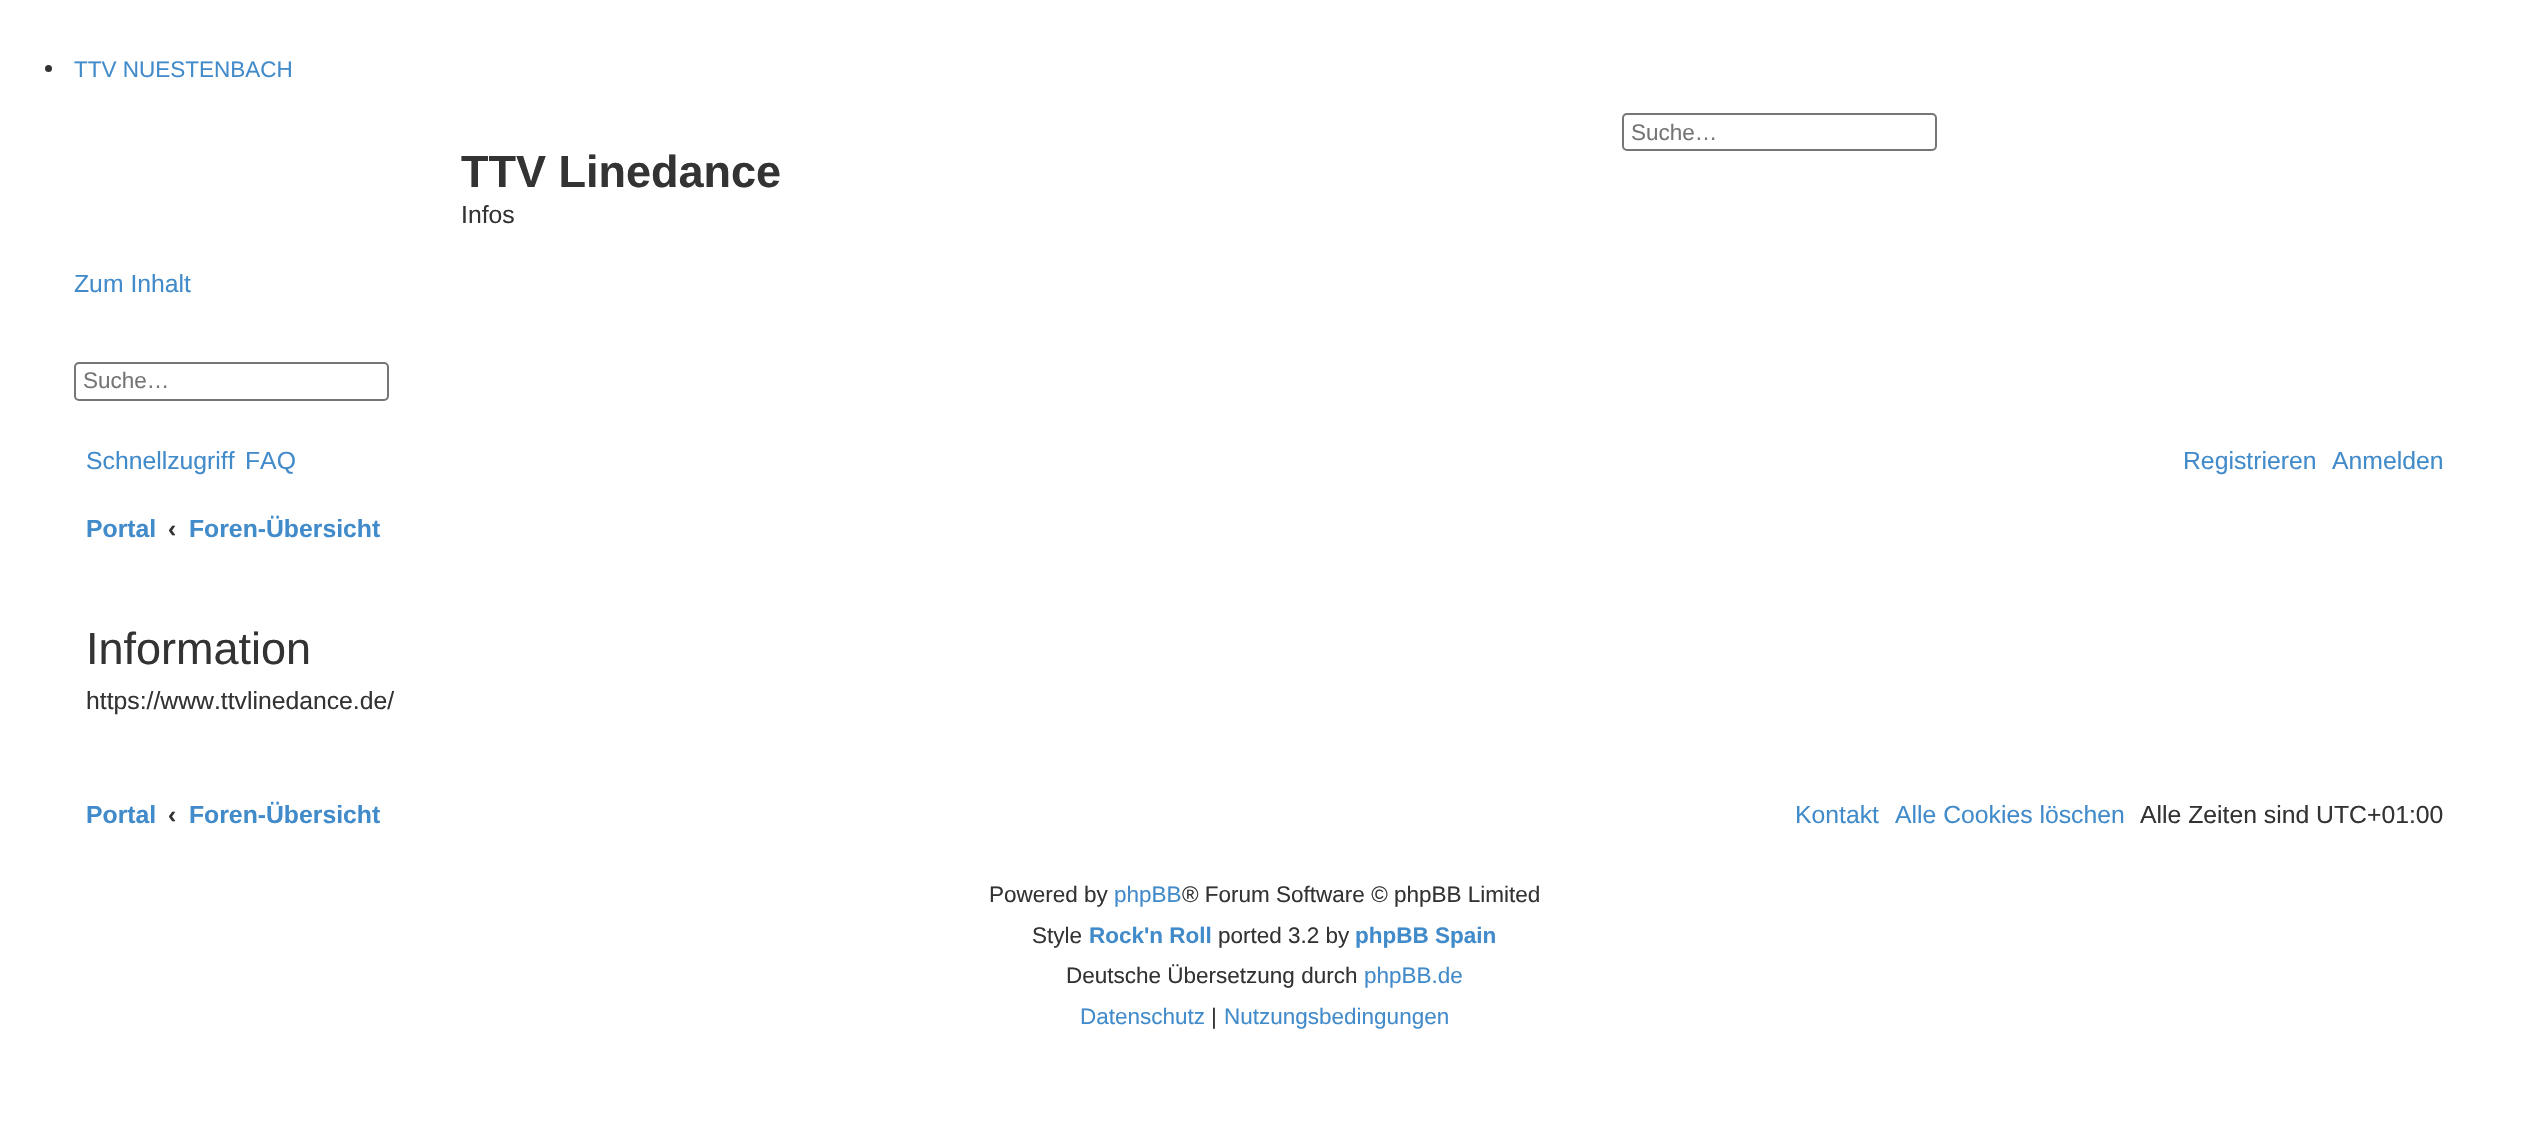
#include "include/core/SkBlurTypes.h"
#include "include/core/SkCanvas.h"
#include "include/core/SkData.h"
#include "include/core/SkFont.h"
#include "include/core/SkFontMgr.h"
#include "include/core/SkImage.h"
#include "include/core/SkMaskFilter.h"
#include "include/core/SkPaint.h"
#include "include/core/SkPathBuilder.h"
#include "include/core/SkTextBlob.h"
#include "include/effects/SkDashPathEffect.h"
#include "include/effects/SkGradientShader.h"
#include "include/utils/SkParsePath.h"

extern sk_sp<SkFontMgr> fontMgr;

void draw(SkCanvas* canvas) {
    SkPaint p;
    p.setAntiAlias(true);
    auto font = [&](const char* family, int weight, float size, bool italic = false) {
        SkFontStyle style(weight, SkFontStyle::kNormal_Width,
            italic ? SkFontStyle::kItalic_Slant : SkFontStyle::kUpright_Slant);
        SkFont result(fontMgr->matchFamilyStyle(family, style), size);
        result.setSubpixel(true);
        return result;
    };
    canvas->clear(0xFFFFFFFF);
    p.setColor(0xFF333333);
    canvas->drawCircle(48.5f, 68.5f, 3.5f, p);
    auto font1 = font("Liberation Sans", 400, 22.5f);
    p.setColor(0xFF428BCA);
    canvas->drawString("TTV NUESTENBACH", 74, 77, font1, p);
    p.setStyle(SkPaint::kStroke_Style);
    p.setStrokeWidth(2);
    p.setColor(0xFF767676);
    canvas->drawRoundRect(SkRect::MakeLTRB(1623, 114, 1936, 150), 4, 4, p);
    p.setStyle(SkPaint::kFill_Style);
    p.setColor(0xFF757575);
    canvas->drawString("Suche…", 1631, 140, font1, p);
    auto font2 = font("Liberation Sans", 700, 45);
    p.setColor(0xFF333333);
    canvas->drawString("TTV Linedance", 461, 187, font2, p);
    auto font3 = font("Liberation Sans", 400, 24.75f);
    canvas->drawString("Infos", 461, 223, font3, p);
    p.setColor(0xFF428BCA);
    canvas->drawString("Zum Inhalt", 74, 292, font3, p);
    p.setStyle(SkPaint::kStroke_Style);
    p.setColor(0xFF767676);
    canvas->drawRoundRect(SkRect::MakeLTRB(75, 363, 388, 400), 4, 4, p);
    p.setStyle(SkPaint::kFill_Style);
    p.setColor(0xFF757575);
    canvas->drawString("Suche…", 83, 388, font1, p);
    p.setColor(0xFF428BCA);
    {
        const struct { const char* s; float x, y; } items[] = {
            {"Schnellzugriff", 86, 469},
            {"FAQ", 245, 469},
            {"Registrieren", 2183, 469},
            {"Anmelden", 2332, 469},
        };
        for (auto [s, x, y] : items) {
            canvas->drawString(s, x, y, font3, p);
        }
    }
    auto font4 = font("Liberation Sans", 700, 24.75f);
    canvas->drawString("Portal", 86, 537, font4, p);
    p.setColor(0xFF333333);
    canvas->drawString("‹", 168, 537, font4, p);
    p.setColor(0xFF428BCA);
    canvas->drawString("Foren-Übersicht", 189, 537, font4, p);
    auto font5 = font("Liberation Sans", 400, 45);
    p.setColor(0xFF333333);
    canvas->drawString("Information", 86, 664, font5, p);
    canvas->drawString("https://www.ttvlinedance.de/", 86, 709, font3, p);
    p.setColor(0xFF428BCA);
    canvas->drawString("Portal", 86, 823, font4, p);
    p.setColor(0xFF333333);
    canvas->drawString("‹", 168, 823, font4, p);
    p.setColor(0xFF428BCA);
    canvas->drawString("Foren-Übersicht", 189, 823, font4, p);
    canvas->drawString("Kontakt", 1795, 823, font3, p);
    canvas->drawString("Alle Cookies löschen", 1895, 823, font3, p);
    p.setColor(0xFF333333);
    canvas->drawString("Alle Zeiten sind UTC+01:00", 2140, 823, font3, p);
    canvas->drawString("Powered by", 989, 902, font1, p);
    p.setColor(0xFF428BCA);
    canvas->drawString("phpBB", 1114, 902, font1, p);
    p.setColor(0xFF333333);
    canvas->drawString("® Forum Software © phpBB Limited", 1182, 902, font1, p);
    canvas->drawString("Style", 1032, 943, font1, p);
    auto font6 = font("Liberation Sans", 700, 22.5f);
    p.setColor(0xFF428BCA);
    canvas->drawString("Rock'n Roll", 1089, 943, font6, p);
    p.setColor(0xFF333333);
    canvas->drawString("ported 3.2 by", 1218, 943, font1, p);
    p.setColor(0xFF428BCA);
    canvas->drawString("phpBB Spain", 1355, 943, font6, p);
    p.setColor(0xFF333333);
    canvas->drawString("Deutsche Übersetzung durch", 1066, 983, font1, p);
    p.setColor(0xFF428BCA);
    canvas->drawString("phpBB.de", 1364, 983, font1, p);
    canvas->drawString("Datenschutz", 1080, 1024, font1, p);
    p.setColor(0xFF333333);
    canvas->drawString("|", 1211, 1024, font1, p);
    p.setColor(0xFF428BCA);
    canvas->drawString("Nutzungsbedingungen", 1224, 1024, font1, p);
}
